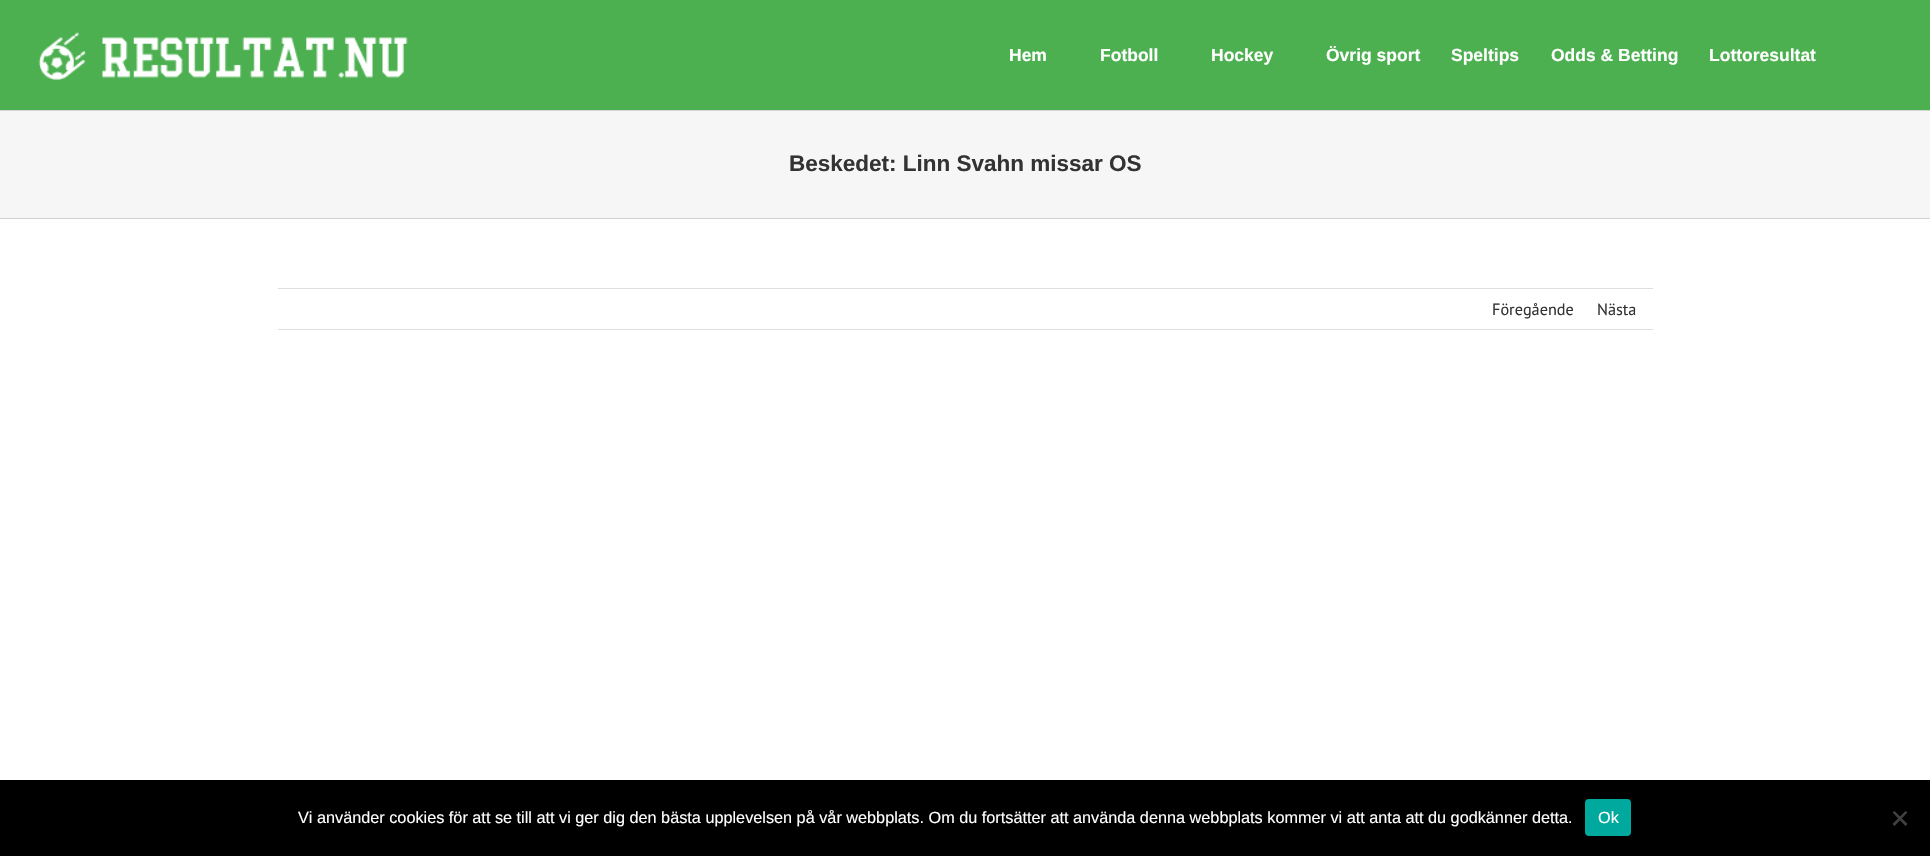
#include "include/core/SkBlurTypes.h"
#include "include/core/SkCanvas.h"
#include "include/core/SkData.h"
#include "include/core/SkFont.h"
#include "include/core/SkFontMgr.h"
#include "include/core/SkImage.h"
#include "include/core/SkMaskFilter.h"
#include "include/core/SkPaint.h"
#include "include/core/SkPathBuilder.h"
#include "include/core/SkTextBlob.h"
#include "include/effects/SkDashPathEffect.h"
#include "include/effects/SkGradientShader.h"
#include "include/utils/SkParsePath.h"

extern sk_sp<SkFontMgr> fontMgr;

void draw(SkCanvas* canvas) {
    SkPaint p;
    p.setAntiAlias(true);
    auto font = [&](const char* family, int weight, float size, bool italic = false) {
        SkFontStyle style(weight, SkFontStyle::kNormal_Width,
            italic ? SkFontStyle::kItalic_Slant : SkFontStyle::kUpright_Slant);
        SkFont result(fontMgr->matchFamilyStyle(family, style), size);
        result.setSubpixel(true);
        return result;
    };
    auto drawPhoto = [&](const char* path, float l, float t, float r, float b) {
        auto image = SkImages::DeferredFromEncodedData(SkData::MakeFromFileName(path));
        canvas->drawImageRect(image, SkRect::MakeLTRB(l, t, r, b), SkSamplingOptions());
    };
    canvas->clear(0xFFFFFFFF);
    p.setColor(0xFF4CB050);
    canvas->drawRect(SkRect::MakeLTRB(0, 0, 1930, 110), p);
    drawPhoto("media/1.png", 38, 32, 408, 80);
    auto font1 = font("Liberation Sans", 700, 17.5f);
    p.setColor(0xFFFFFFFF);
    {
        const struct { const char* s; float x, y; } items[] = {
            {"Hem", 1009, 61},
            {"Fotboll", 1100, 61},
            {"Hockey", 1211, 61},
            {"Övrig sport", 1326, 61},
            {"Speltips", 1451, 61},
            {"Odds & Betting", 1551, 61},
            {"Lottoresultat", 1709, 61},
        };
        for (auto [s, x, y] : items) {
            canvas->drawString(s, x, y, font1, p);
        }
    }
    {
        const struct { float l, t, r, b; SkColor color; } items[] = {
            {0, 111, 1930, 218, 0xFFF6F6F6},
            {0, 110, 1930, 111, 0xFFD2D3D4},
            {0, 218, 1930, 219, 0xFFD2D3D4},
        };
        for (auto [l, t, r, b, color] : items) {
            p.setColor(color);
            canvas->drawRect(SkRect::MakeLTRB(l, t, r, b), p);
        }
    }
    auto font2 = font("Liberation Sans", 700, 22.5f);
    p.setColor(0xFF333333);
    canvas->drawString("Beskedet: Linn Svahn missar OS", 789, 171, font2, p);
    p.setColor(0xFFE0DEDE);
    canvas->drawRect(SkRect::MakeLTRB(278, 288, 1653, 289), p);
    canvas->drawRect(SkRect::MakeLTRB(278, 329, 1653, 330), p);
    auto font3 = font("PT Sans", 400, 16.25f);
    p.setColor(0xFF333333);
    canvas->drawString("Föregående", 1492, 315, font3, p);
    canvas->drawString("Nästa", 1597, 315, font3, p);
    p.setColor(0xFF000000);
    canvas->drawRect(SkRect::MakeLTRB(0, 780, 1930, 856), p);
    auto font4 = font("Liberation Sans", 400, 16.25f);
    p.setColor(0xFFFFFFFF);
    canvas->drawString("Vi använder cookies för att se till att vi ger dig den bästa upplevelsen på vår webbplats. Om du fortsätter att använda denna webbplats kommer vi att anta att du godkänner detta.", 298, 823, font4, p);
    p.setColor(0xFF00A99D);
    canvas->drawRoundRect(SkRect::MakeLTRB(1585, 799, 1631, 836), 4, 4, p);
    p.setColor(0xFFFFFFFF);
    canvas->drawString("Ok", 1598, 823, font4, p);
    p.setColor(0xFF404040);
    canvas->drawPath(SkPathBuilder().moveTo(1905.5f, 811).lineTo(1907.5f, 812.5f).lineTo(1894.5f, 826).lineTo(1892.5f, 824).close().detach(), p);
    canvas->drawPath(SkPathBuilder().moveTo(1892.5f, 812.5f).lineTo(1894.5f, 811).lineTo(1907.5f, 824).lineTo(1905.5f, 826).close().detach(), p);
}
